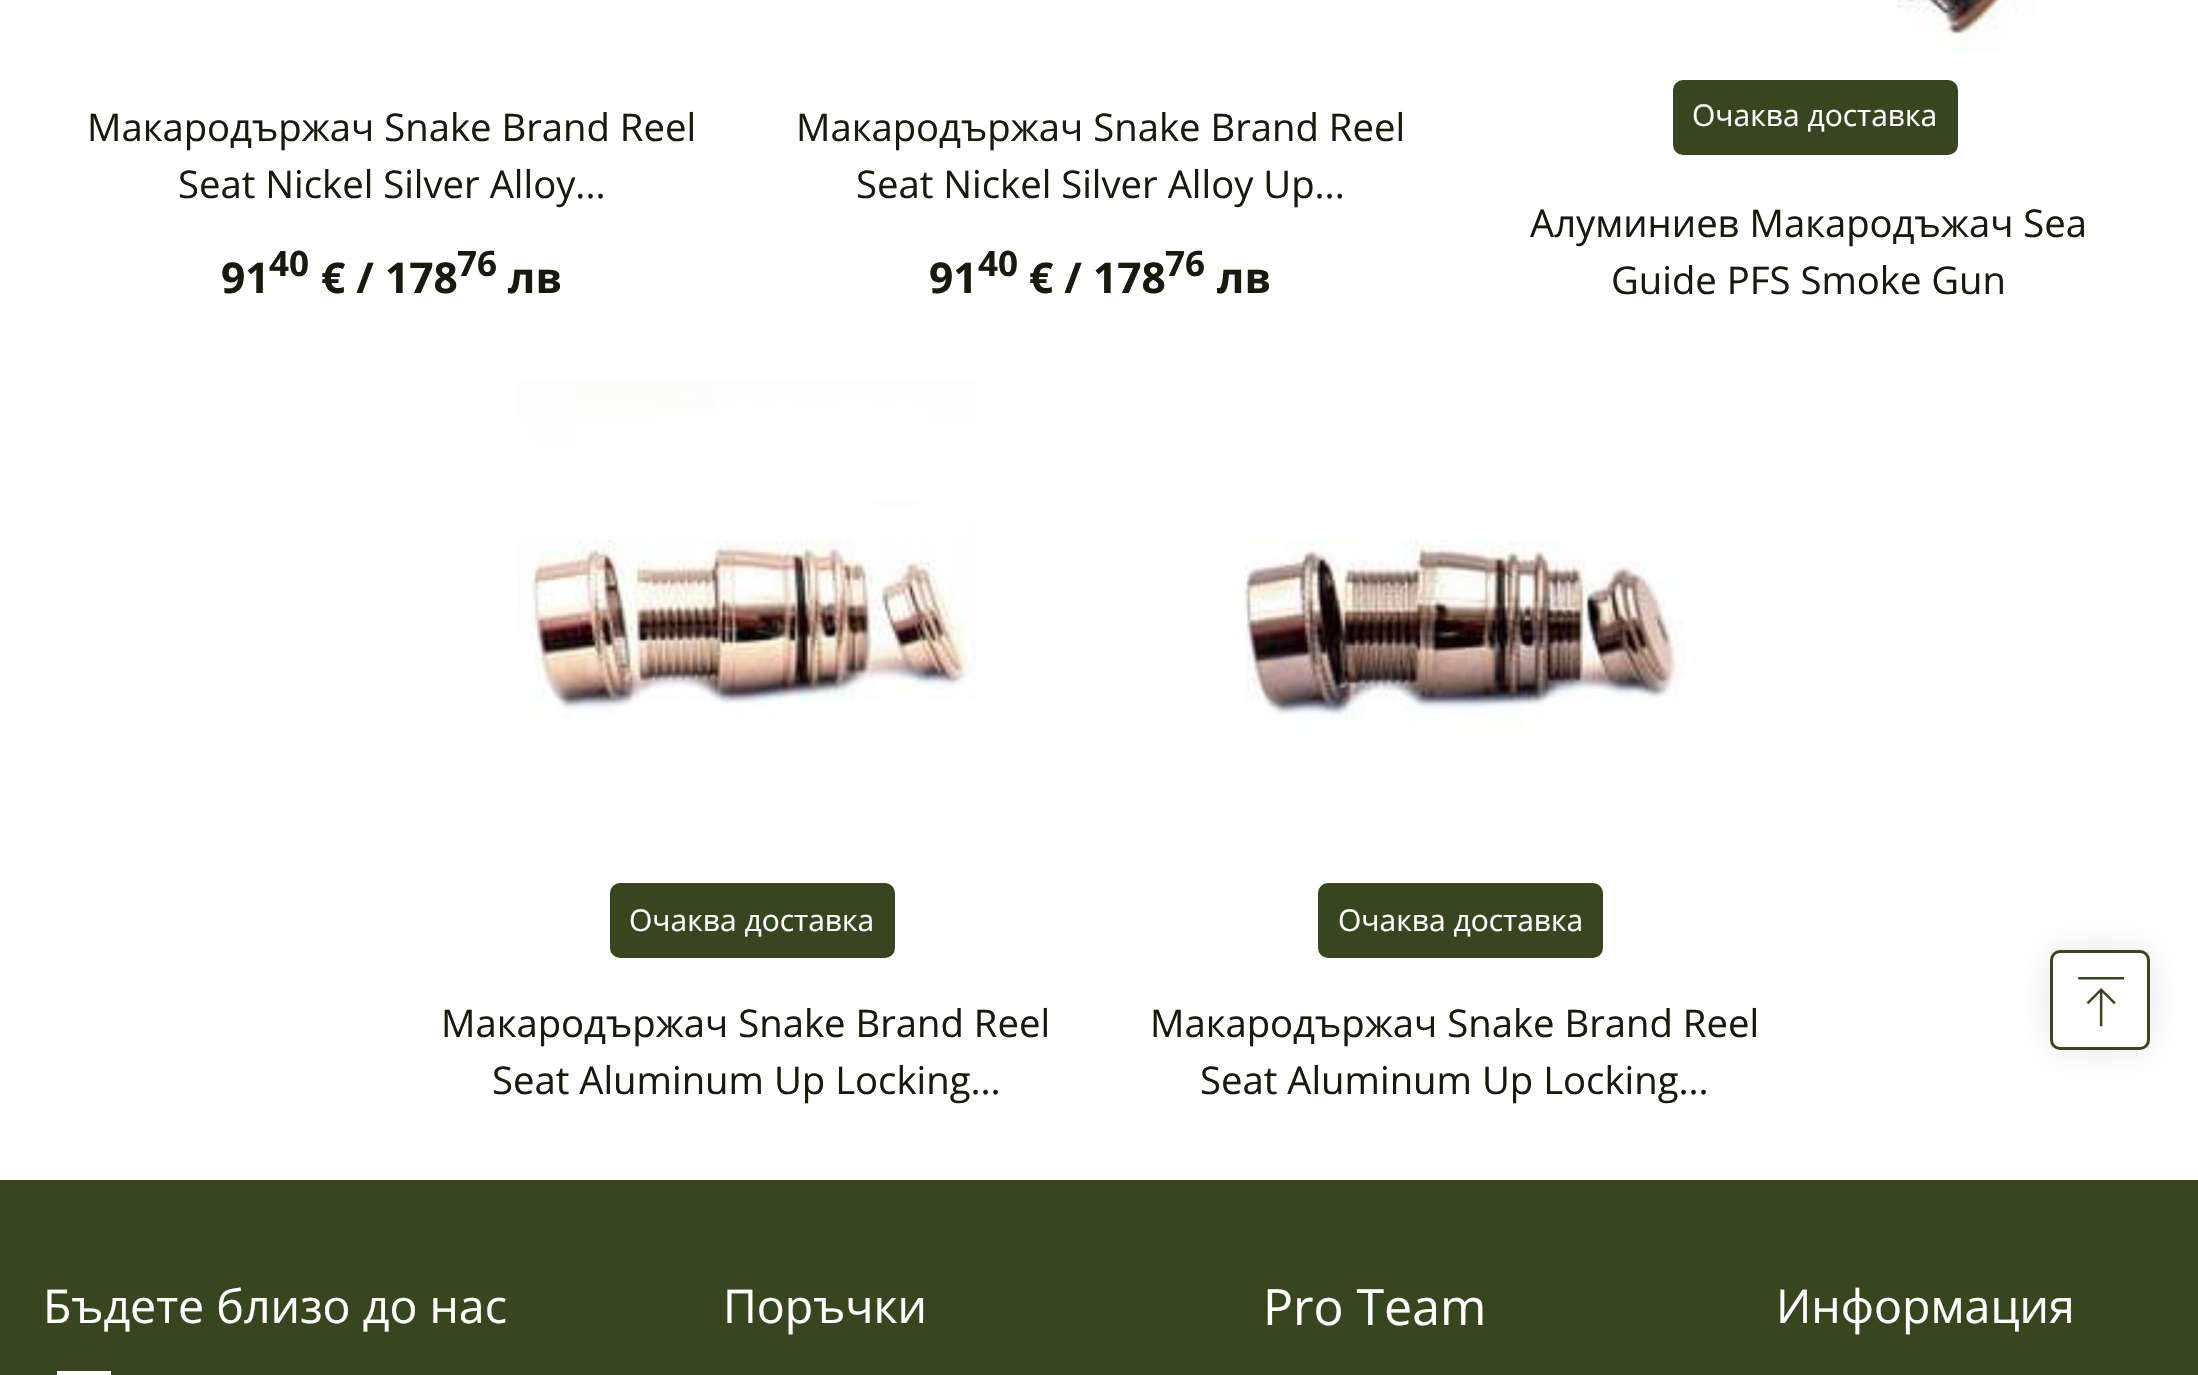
#include "include/core/SkBlurTypes.h"
#include "include/core/SkCanvas.h"
#include "include/core/SkData.h"
#include "include/core/SkFont.h"
#include "include/core/SkFontMgr.h"
#include "include/core/SkImage.h"
#include "include/core/SkMaskFilter.h"
#include "include/core/SkPaint.h"
#include "include/core/SkPathBuilder.h"
#include "include/core/SkTextBlob.h"
#include "include/effects/SkDashPathEffect.h"
#include "include/effects/SkGradientShader.h"
#include "include/utils/SkParsePath.h"

extern sk_sp<SkFontMgr> fontMgr;

void draw(SkCanvas* canvas) {
    SkPaint p;
    p.setAntiAlias(true);
    auto font = [&](const char* family, int weight, float size, bool italic = false) {
        SkFontStyle style(weight, SkFontStyle::kNormal_Width,
            italic ? SkFontStyle::kItalic_Slant : SkFontStyle::kUpright_Slant);
        SkFont result(fontMgr->matchFamilyStyle(family, style), size);
        result.setSubpixel(true);
        return result;
    };
    auto drawPhoto = [&](const char* path, float l, float t, float r, float b) {
        auto image = SkImages::DeferredFromEncodedData(SkData::MakeFromFileName(path));
        canvas->drawImageRect(image, SkRect::MakeLTRB(l, t, r, b), SkSamplingOptions());
    };
    canvas->clear(0xFFFFFFFF);
    auto font1 = font("Open Sans", 400, 38.25f);
    p.setColor(0xFF161B0E);
    canvas->drawString("Макародържач Snake Brand Reel", 87, 141, font1, p);
    canvas->drawString("Seat Nickel Silver Alloy...", 178, 198, font1, p);
    auto font2 = font("Open Sans", 700, 42.5f);
    canvas->drawString("91", 221, 293, font2, p);
    auto font3 = font("Open Sans", 700, 35);
    canvas->drawString("40", 269, 276, font3, p);
    canvas->drawString("€ / 178", 321, 293, font2, p);
    canvas->drawString("76", 457, 276, font3, p);
    canvas->drawString("лв", 508, 293, font2, p);
    canvas->drawString("Макародържач Snake Brand Reel", 796, 141, font1, p);
    canvas->drawString("Seat Nickel Silver Alloy Up...", 856, 198, font1, p);
    canvas->drawString("91", 929, 293, font2, p);
    canvas->drawString("40", 978, 276, font3, p);
    canvas->drawString("€ / 178", 1029, 293, font2, p);
    canvas->drawString("76", 1165, 276, font3, p);
    canvas->drawString("лв", 1217, 293, font2, p);
    drawPhoto("media/1.png", 1895, 0, 2038, 53);
    p.setColor(0xFF37461E);
    canvas->drawRoundRect(SkRect::MakeLTRB(1674.5f, 81.5f, 1956.5f, 153.5f), 8.5f, 8.5f, p);
    p.setStyle(SkPaint::kStroke_Style);
    p.setStrokeWidth(3);
    canvas->drawRoundRect(SkRect::MakeLTRB(1674.5f, 81.5f, 1956.5f, 153.5f), 8.5f, 8.5f, p);
    auto font4 = font("Open Sans", 400, 30);
    p.setStyle(SkPaint::kFill_Style);
    p.setColor(0xFFFFFFFF);
    canvas->drawString("Очаква доставка", 1692, 126, font4, p);
    p.setColor(0xFF161B0E);
    canvas->drawString("Алуминиев Макародъжач Sea", 1530, 237, font1, p);
    canvas->drawString("Guide PFS Smoke Gun", 1611, 294, font1, p);
    drawPhoto("media/2.png", 518, 380, 976, 720);
    p.setColor(0xFF37461E);
    canvas->drawRoundRect(SkRect::MakeLTRB(611.5f, 884.5f, 893.5f, 956.5f), 8.5f, 8.5f, p);
    p.setStyle(SkPaint::kStroke_Style);
    canvas->drawRoundRect(SkRect::MakeLTRB(611.5f, 884.5f, 893.5f, 956.5f), 8.5f, 8.5f, p);
    p.setStyle(SkPaint::kFill_Style);
    p.setColor(0xFFFFFFFF);
    canvas->drawString("Очаква доставка", 629, 931, font4, p);
    p.setColor(0xFF161B0E);
    canvas->drawString("Макародържач Snake Brand Reel", 441, 1037, font1, p);
    canvas->drawString("Seat Aluminum Up Locking...", 492, 1094, font1, p);
    drawPhoto("media/3.png", 1243, 539, 1685, 735);
    p.setColor(0xFF37461E);
    canvas->drawRoundRect(SkRect::MakeLTRB(1319.5f, 884.5f, 1601.5f, 956.5f), 8.5f, 8.5f, p);
    p.setStyle(SkPaint::kStroke_Style);
    canvas->drawRoundRect(SkRect::MakeLTRB(1319.5f, 884.5f, 1601.5f, 956.5f), 8.5f, 8.5f, p);
    p.setStyle(SkPaint::kFill_Style);
    p.setColor(0xFFFFFFFF);
    canvas->drawString("Очаква доставка", 1338, 931, font4, p);
    p.setColor(0xFF161B0E);
    canvas->drawString("Макародържач Snake Brand Reel", 1150, 1037, font1, p);
    canvas->drawString("Seat Aluminum Up Locking...", 1200, 1094, font1, p);
    canvas->save();
    canvas->clipPath(SkPathBuilder(SkPathFillType::kEvenOdd).moveTo(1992, 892).lineTo(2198, 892).lineTo(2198, 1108).lineTo(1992, 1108).close().moveTo(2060, 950).lineTo(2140, 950).cubicTo(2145.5f, 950, 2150, 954.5f, 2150, 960).lineTo(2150, 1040).cubicTo(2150, 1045.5f, 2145.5f, 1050, 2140, 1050).lineTo(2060, 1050).cubicTo(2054.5f, 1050, 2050, 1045.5f, 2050, 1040).lineTo(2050, 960).cubicTo(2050, 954.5f, 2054.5f, 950, 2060, 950).close().detach(), true);
    p.setColor(0x1C151E07);
    p.setMaskFilter(SkMaskFilter::MakeBlur(kNormal_SkBlurStyle, 19));
    canvas->drawRoundRect(SkRect::MakeLTRB(2050, 950, 2150, 1050), 10, 10, p);
    p.setMaskFilter(nullptr);
    canvas->restore();
    p.setStyle(SkPaint::kStroke_Style);
    p.setColor(0xFF37461E);
    canvas->drawRoundRect(SkRect::MakeLTRB(2051.5f, 951.5f, 2148.5f, 1048.5f), 8.5f, 8.5f, p);
    drawPhoto("media/4.png", 2078, 977, 2125, 1027);
    p.setStyle(SkPaint::kFill_Style);
    canvas->drawRect(SkRect::MakeLTRB(0, 1180, 2198, 1375), p);
    auto font5 = font("Open Sans", 400, 46.5f);
    p.setColor(0xFFFFFFFF);
    canvas->drawString("Бъдете близо до нас", 43, 1323, font5, p);
    canvas->drawRect(SkRect::MakeLTRB(57, 1371, 111, 1375), p);
    canvas->drawString("Поръчки", 723, 1323, font5, p);
    auto font6 = font("Open Sans", 400, 50);
    canvas->drawString("Pro Team", 1263, 1325, font6, p);
    canvas->drawString("Информация", 1776, 1323, font5, p);
}
